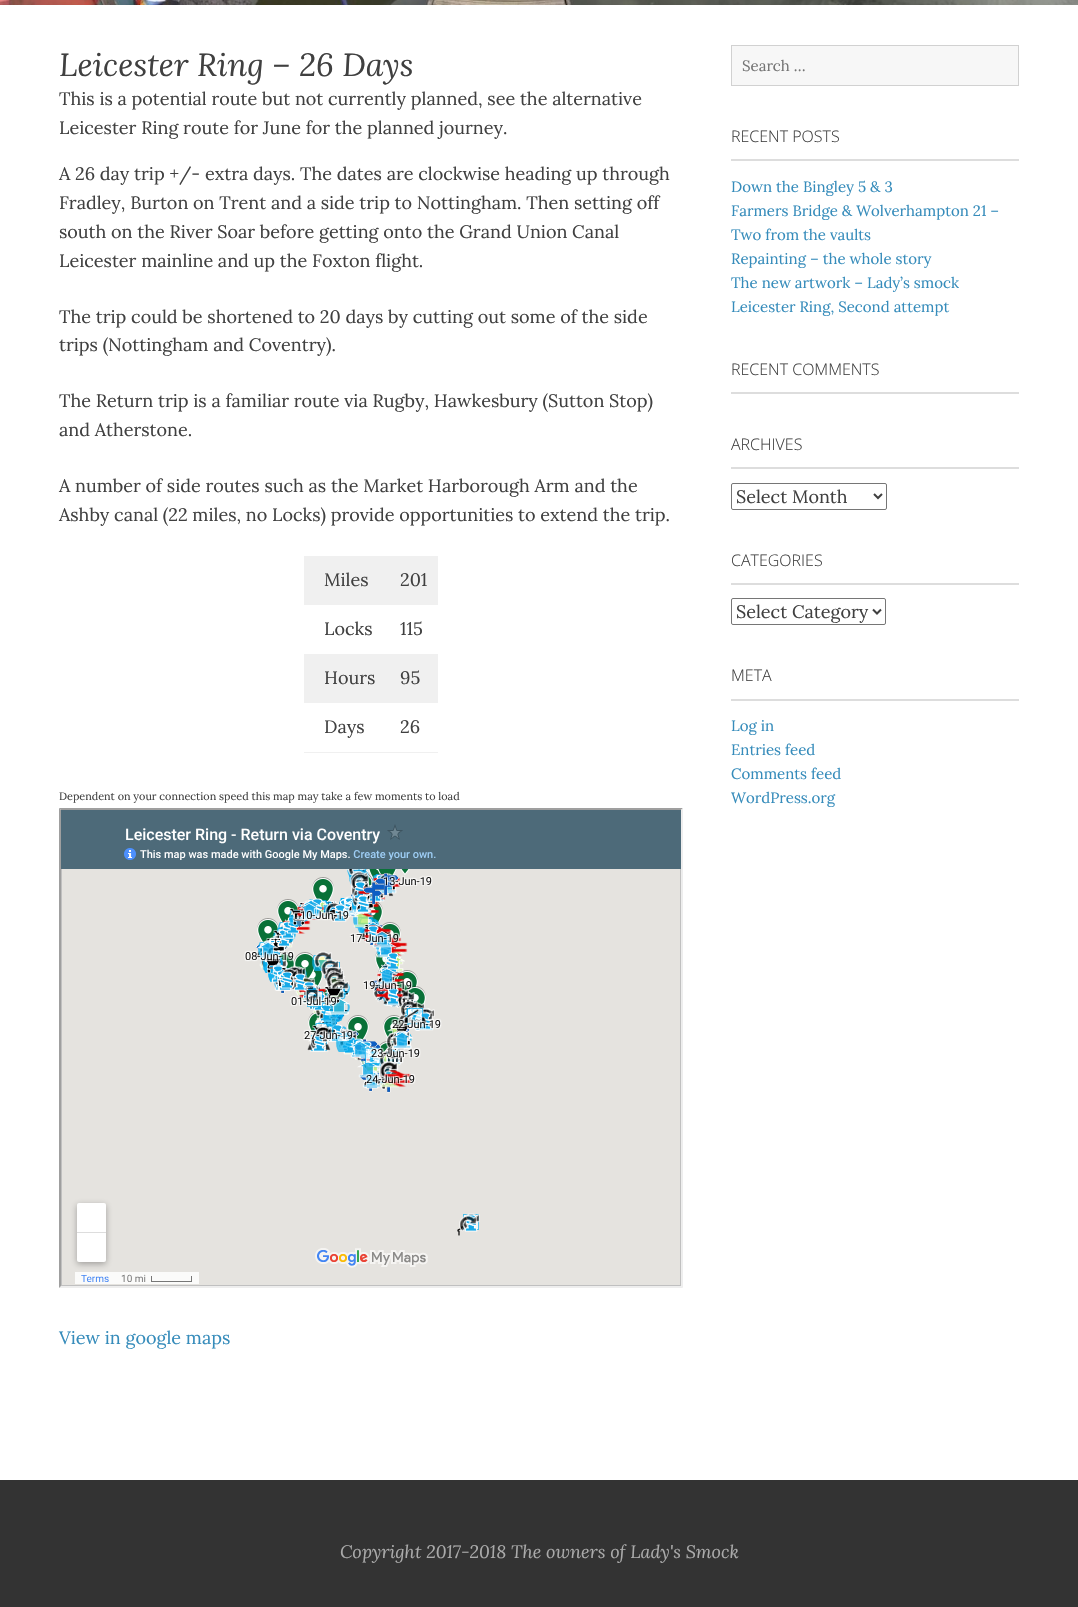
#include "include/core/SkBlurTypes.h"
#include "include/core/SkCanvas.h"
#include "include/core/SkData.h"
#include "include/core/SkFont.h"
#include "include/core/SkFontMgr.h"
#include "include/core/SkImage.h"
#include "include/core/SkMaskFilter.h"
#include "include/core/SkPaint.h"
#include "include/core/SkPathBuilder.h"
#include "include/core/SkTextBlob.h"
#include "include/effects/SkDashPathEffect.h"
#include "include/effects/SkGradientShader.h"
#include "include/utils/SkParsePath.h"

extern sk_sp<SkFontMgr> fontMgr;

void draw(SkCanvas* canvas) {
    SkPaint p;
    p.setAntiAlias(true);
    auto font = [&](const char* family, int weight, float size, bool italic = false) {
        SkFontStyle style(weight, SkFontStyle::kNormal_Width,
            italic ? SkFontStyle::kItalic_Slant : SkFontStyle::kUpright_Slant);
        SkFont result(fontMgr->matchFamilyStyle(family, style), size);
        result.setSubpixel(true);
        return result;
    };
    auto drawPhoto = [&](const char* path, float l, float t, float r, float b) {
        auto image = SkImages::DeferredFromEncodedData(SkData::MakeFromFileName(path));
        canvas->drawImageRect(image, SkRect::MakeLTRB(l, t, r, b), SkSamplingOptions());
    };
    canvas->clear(0xFFFFFFFF);
    drawPhoto("media/1.png", 0, 0, 1078, 5);
    auto font1 = font("Lora", 400, 32, true);
    p.setColor(0xFF404040);
    canvas->drawString("Leicester Ring – 26 Days", 59, 76, font1, p);
    auto font2 = font("Lora", 400, 18);
    {
        const struct { const char* s; float x, y; } items[] = {
            {"This is a potential route but not currently planned, see the alternative", 59, 105},
            {"Leicester Ring route for June for the planned journey.", 59, 134},
            {"A 26 day trip +/- extra days. The dates are clockwise heading up through", 59, 180},
            {"Fradley, Burton on Trent and a side trip to Nottingham. Then setting off", 59, 209},
            {"south on the River Soar before getting onto the Grand Union Canal", 59, 238},
            {"Leicester mainline and up the Foxton flight.", 59, 267},
            {"The trip could be shortened to 20 days by cutting out some of the side", 59, 323},
            {"trips (Nottingham and Coventry).", 59, 351},
            {"The Return trip is a familiar route via Rugby, Hawkesbury (Sutton Stop)", 59, 407},
            {"and Atherstone.", 59, 436},
            {"A number of side routes such as the Market Harborough Arm and the", 59, 492},
            {"Ashby canal (22 miles, no Locks) provide opportunities to extend the trip.", 59, 521},
        };
        for (auto [s, x, y] : items) {
            canvas->drawString(s, x, y, font2, p);
        }
    }
    p.setColor(0xFFF0F0F0);
    canvas->drawRect(SkRect::MakeLTRB(304, 752, 438, 753), p);
    canvas->drawRect(SkRect::MakeLTRB(304, 556, 438, 605), p);
    p.setColor(0xFF404040);
    {
        const struct { const char* s; float x, y; } items[] = {
            {"Miles", 324, 586},
            {"201", 400, 586},
            {"Locks", 324, 635},
            {"115", 400, 635},
        };
        for (auto [s, x, y] : items) {
            canvas->drawString(s, x, y, font2, p);
        }
    }
    p.setColor(0xFFF0F0F0);
    canvas->drawRect(SkRect::MakeLTRB(304, 654, 438, 703), p);
    p.setColor(0xFF404040);
    {
        const struct { const char* s; float x, y; } items[] = {
            {"Hours", 324, 684},
            {"95", 400, 684},
            {"Days", 324, 733},
            {"26", 400, 733},
        };
        for (auto [s, x, y] : items) {
            canvas->drawString(s, x, y, font2, p);
        }
    }
    auto font3 = font("Lora", 400, 10.8f);
    canvas->drawString("Dependent on your connection speed this map may take a few moments to load", 59, 800, font3, p);
    p.setColor(0xFF9F9F9F);
    canvas->drawPath(SkPathBuilder().moveTo(59, 808).lineTo(683, 808).lineTo(681, 810).lineTo(61, 810).close().detach(), p);
    p.setColor(0xFFEEEEEE);
    canvas->drawPath(SkPathBuilder().moveTo(683, 808).lineTo(683, 1288).lineTo(681, 1286).lineTo(681, 810).close().detach(), p);
    canvas->drawPath(SkPathBuilder().moveTo(683, 1288).lineTo(59, 1288).lineTo(61, 1286).lineTo(681, 1286).close().detach(), p);
    p.setColor(0xFF9F9F9F);
    canvas->drawPath(SkPathBuilder().moveTo(59, 1288).lineTo(59, 808).lineTo(61, 810).lineTo(61, 1286).close().detach(), p);
    drawPhoto("media/2.png", 61, 810, 681, 1286);
    p.setColor(0xFF368CBB);
    canvas->drawString("View in google maps", 59, 1344, font2, p);
    p.setColor(0xFFF7F7F7);
    canvas->drawRect(SkRect::MakeLTRB(731.5f, 45.5f, 1018.5f, 85.5f), p);
    p.setStyle(SkPaint::kStroke_Style);
    p.setStrokeWidth(1);
    p.setColor(0xFFD1D1D1);
    canvas->drawRect(SkRect::MakeLTRB(731.5f, 45.5f, 1018.5f, 85.5f), p);
    auto font4 = font("Lora", 400, 15);
    p.setStyle(SkPaint::kFill_Style);
    p.setColor(0xFF757575);
    canvas->drawString("Search …", 742, 71, font4, p);
    p.setColor(0xFFDDDDDD);
    canvas->drawRect(SkRect::MakeLTRB(731, 159, 1019, 161), p);
    auto font5 = font("Open Sans", 300, 16);
    p.setColor(0xFF404040);
    canvas->drawString("RECENT POSTS", 731, 142, font5, p);
    p.setColor(0xFF368CBB);
    {
        const struct { const char* s; float x, y; } items[] = {
            {"Down the Bingley 5 & 3", 731, 192},
            {"Farmers Bridge & Wolverhampton 21 –", 731, 216},
            {"Two from the vaults", 731, 240},
            {"Repainting – the whole story", 731, 264},
            {"The new artwork – Lady’s smock", 731, 288},
            {"Leicester Ring, Second attempt", 731, 312},
        };
        for (auto [s, x, y] : items) {
            canvas->drawString(s, x, y, font4, p);
        }
    }
    p.setColor(0xFFDDDDDD);
    canvas->drawRect(SkRect::MakeLTRB(731, 392, 1019, 394), p);
    p.setColor(0xFF404040);
    canvas->drawString("RECENT COMMENTS", 731, 375, font5, p);
    p.setColor(0xFFDDDDDD);
    canvas->drawRect(SkRect::MakeLTRB(731, 467, 1019, 469), p);
    p.setColor(0xFF404040);
    canvas->drawString("ARCHIVES", 731, 450, font5, p);
    p.setStyle(SkPaint::kStroke_Style);
    p.setColor(0xFF767676);
    canvas->drawRoundRect(SkRect::MakeLTRB(731.5f, 483.5f, 886.5f, 509.5f), 1.5f, 1.5f, p);
    p.setStrokeWidth(2);
    p.setColor(0xFF404040);
    canvas->drawPath(SkPathBuilder().moveTo(874, 494).lineTo(878, 498).lineTo(882, 494).detach(), p);
    p.setStyle(SkPaint::kFill_Style);
    canvas->drawString("Select Month", 736, 503, font2, p);
    p.setColor(0xFFDDDDDD);
    canvas->drawRect(SkRect::MakeLTRB(731, 583, 1019, 585), p);
    p.setColor(0xFF404040);
    canvas->drawString("CATEGORIES", 731, 566, font5, p);
    p.setStyle(SkPaint::kStroke_Style);
    p.setStrokeWidth(1);
    p.setColor(0xFF767676);
    canvas->drawRoundRect(SkRect::MakeLTRB(731.5f, 598.5f, 885.5f, 624.5f), 1.5f, 1.5f, p);
    p.setStrokeWidth(2);
    p.setColor(0xFF404040);
    canvas->drawPath(SkPathBuilder().moveTo(873, 609.5f).lineTo(877, 613.5f).lineTo(881, 609.5f).detach(), p);
    p.setStyle(SkPaint::kFill_Style);
    canvas->drawString("Select Category", 736, 618, font2, p);
    p.setColor(0xFFDDDDDD);
    canvas->drawRect(SkRect::MakeLTRB(731, 699, 1019, 701), p);
    p.setColor(0xFF404040);
    canvas->drawString("META", 731, 681, font5, p);
    p.setColor(0xFF368CBB);
    {
        const struct { const char* s; float x, y; } items[] = {
            {"Log in", 731, 731},
            {"Entries feed", 731, 755},
            {"Comments feed", 731, 779},
            {"WordPress.org", 731, 803},
        };
        for (auto [s, x, y] : items) {
            canvas->drawString(s, x, y, font4, p);
        }
    }
    p.setColor(0xFF333333);
    canvas->drawRect(SkRect::MakeLTRB(0, 1480, 1078, 1607), p);
    auto font6 = font("Lora", 400, 18, true);
    p.setColor(0xFFAAAAAA);
    canvas->drawString("Copyright 2017-2018 The owners of Lady's Smock", 340, 1558, font6, p);
}
